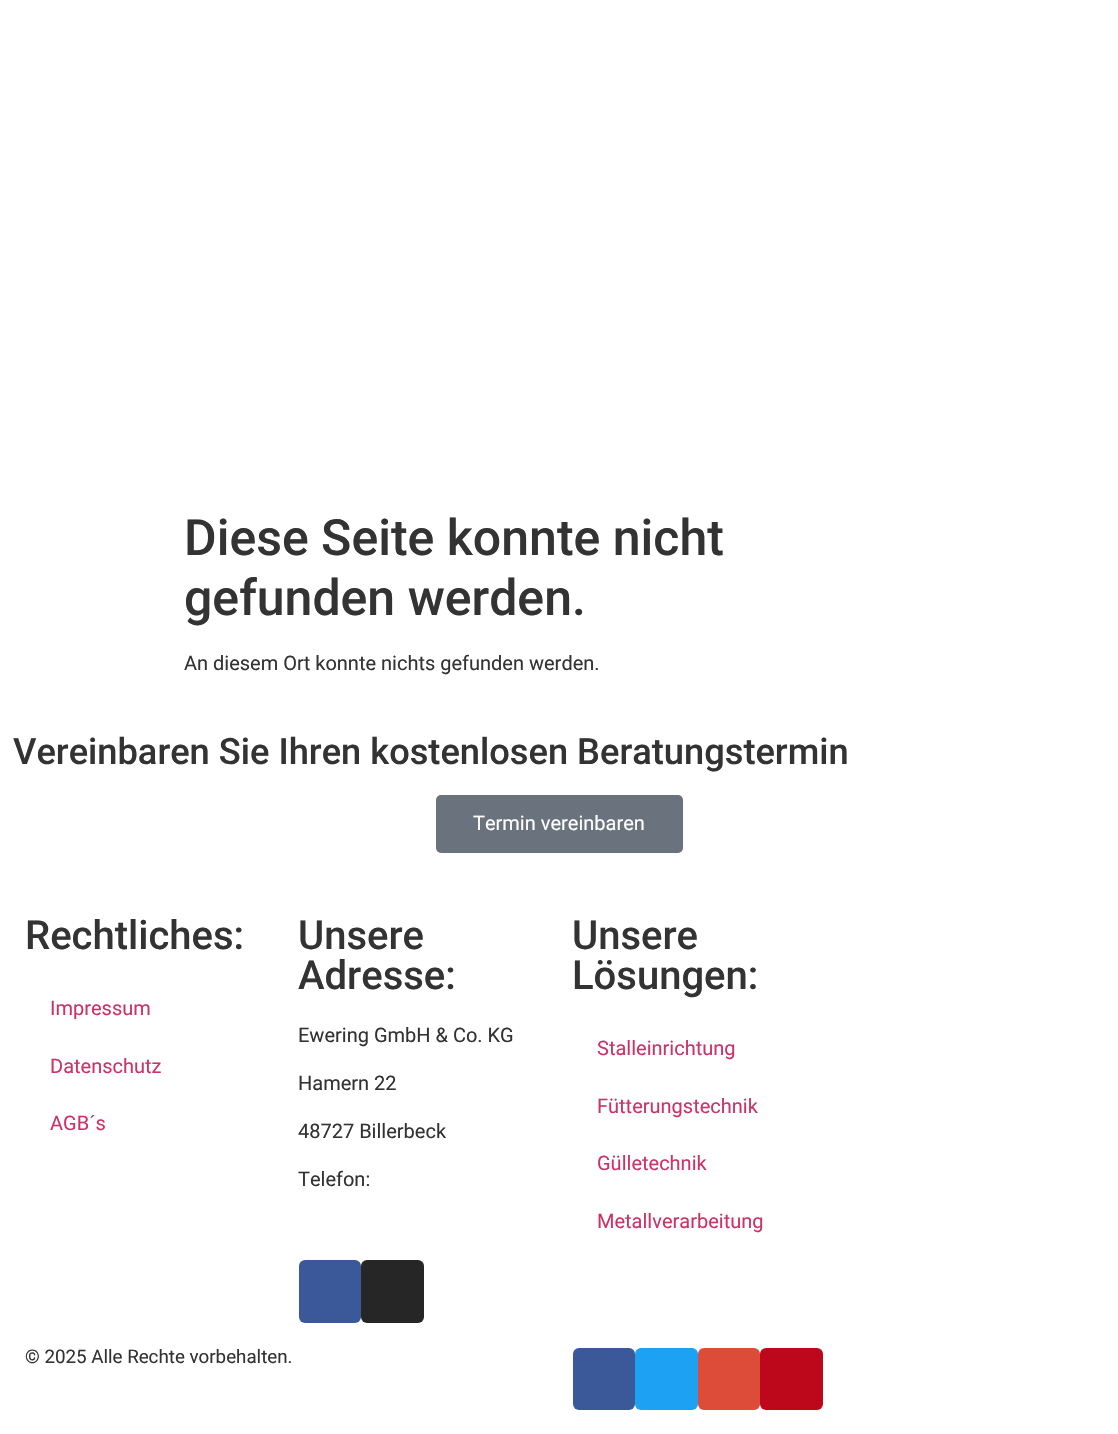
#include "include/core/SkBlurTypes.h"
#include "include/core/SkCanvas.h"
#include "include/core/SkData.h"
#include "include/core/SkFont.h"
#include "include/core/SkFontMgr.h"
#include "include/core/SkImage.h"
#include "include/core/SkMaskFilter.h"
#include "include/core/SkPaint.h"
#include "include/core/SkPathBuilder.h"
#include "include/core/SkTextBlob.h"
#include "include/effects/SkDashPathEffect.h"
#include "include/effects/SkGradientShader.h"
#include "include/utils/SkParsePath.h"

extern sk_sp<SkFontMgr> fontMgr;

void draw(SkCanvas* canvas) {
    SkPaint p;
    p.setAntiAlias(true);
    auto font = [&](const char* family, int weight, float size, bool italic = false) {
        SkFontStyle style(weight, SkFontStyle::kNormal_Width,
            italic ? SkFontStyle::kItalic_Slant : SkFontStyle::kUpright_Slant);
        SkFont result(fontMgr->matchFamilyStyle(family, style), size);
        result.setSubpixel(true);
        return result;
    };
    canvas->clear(0xFFFFFFFF);
    auto font1 = font("Roboto", 500, 50);
    p.setColor(0xFF333333);
    canvas->drawString("Diese Seite konnte nicht", 184, 555, font1, p);
    canvas->drawString("gefunden werden.", 184, 615, font1, p);
    auto font2 = font("Roboto", 400, 20);
    canvas->drawString("An diesem Ort konnte nichts gefunden werden.", 184, 670, font2, p);
    auto font3 = font("Roboto", 500, 36.25f);
    canvas->drawString("Vereinbaren Sie Ihren kostenlosen Beratungstermin", 13, 764, font3, p);
    p.setColor(0xFF69727D);
    canvas->drawRoundRect(SkRect::MakeLTRB(436, 795, 683, 853), 5, 5, p);
    p.setColor(0xFFFFFFFF);
    canvas->drawString("Termin vereinbaren", 473, 830, font2, p);
    auto font4 = font("Roboto", 500, 40);
    p.setColor(0xFF333333);
    canvas->drawString("Rechtliches:", 25, 949, font4, p);
    p.setColor(0xFFCC3366);
    {
        const struct { const char* s; float x, y; } items[] = {
            {"Impressum", 50, 1015},
            {"Datenschutz", 50, 1073},
            {"AGB´s", 50, 1130},
        };
        for (auto [s, x, y] : items) {
            canvas->drawString(s, x, y, font2, p);
        }
    }
    p.setColor(0xFF333333);
    canvas->drawString("Unsere", 298, 949, font4, p);
    canvas->drawString("Adresse:", 298, 989, font4, p);
    {
        const struct { const char* s; float x, y; } items[] = {
            {"Ewering GmbH & Co. KG", 298, 1042},
            {"Hamern 22", 298, 1090},
            {"48727 Billerbeck", 298, 1138},
            {"Telefon:", 298, 1186},
        };
        for (auto [s, x, y] : items) {
            canvas->drawString(s, x, y, font2, p);
        }
    }
    p.setColor(0xFF3B5998);
    canvas->drawRoundRect(SkRect::MakeLTRB(299, 1260, 361, 1323), 6, 6, p);
    p.setColor(0xFF262626);
    canvas->drawRoundRect(SkRect::MakeLTRB(361, 1260, 424, 1323), 6, 6, p);
    p.setColor(0xFF333333);
    canvas->drawString("Unsere", 572, 949, font4, p);
    canvas->drawString("Lösungen:", 572, 989, font4, p);
    p.setColor(0xFFCC3366);
    {
        const struct { const char* s; float x, y; } items[] = {
            {"Stalleinrichtung", 597, 1055},
            {"Fütterungstechnik", 597, 1113},
            {"Gülletechnik", 597, 1170},
            {"Metallverarbeitung", 597, 1228},
        };
        for (auto [s, x, y] : items) {
            canvas->drawString(s, x, y, font2, p);
        }
    }
    auto font5 = font("Roboto", 400, 18.75f);
    p.setColor(0xFF333333);
    canvas->drawString("© 2025 Alle Rechte vorbehalten.", 25, 1363, font5, p);
    p.setColor(0xFF3B5998);
    canvas->drawRoundRect(SkRect::MakeLTRB(573, 1348, 635, 1410), 6, 6, p);
    p.setColor(0xFF1DA1F2);
    canvas->drawRoundRect(SkRect::MakeLTRB(635, 1348, 698, 1410), 6, 6, p);
    p.setColor(0xFFDD4B39);
    canvas->drawRoundRect(SkRect::MakeLTRB(698, 1348, 760, 1410), 6, 6, p);
    p.setColor(0xFFBD081C);
    canvas->drawRoundRect(SkRect::MakeLTRB(760, 1348, 823, 1410), 6, 6, p);
}
